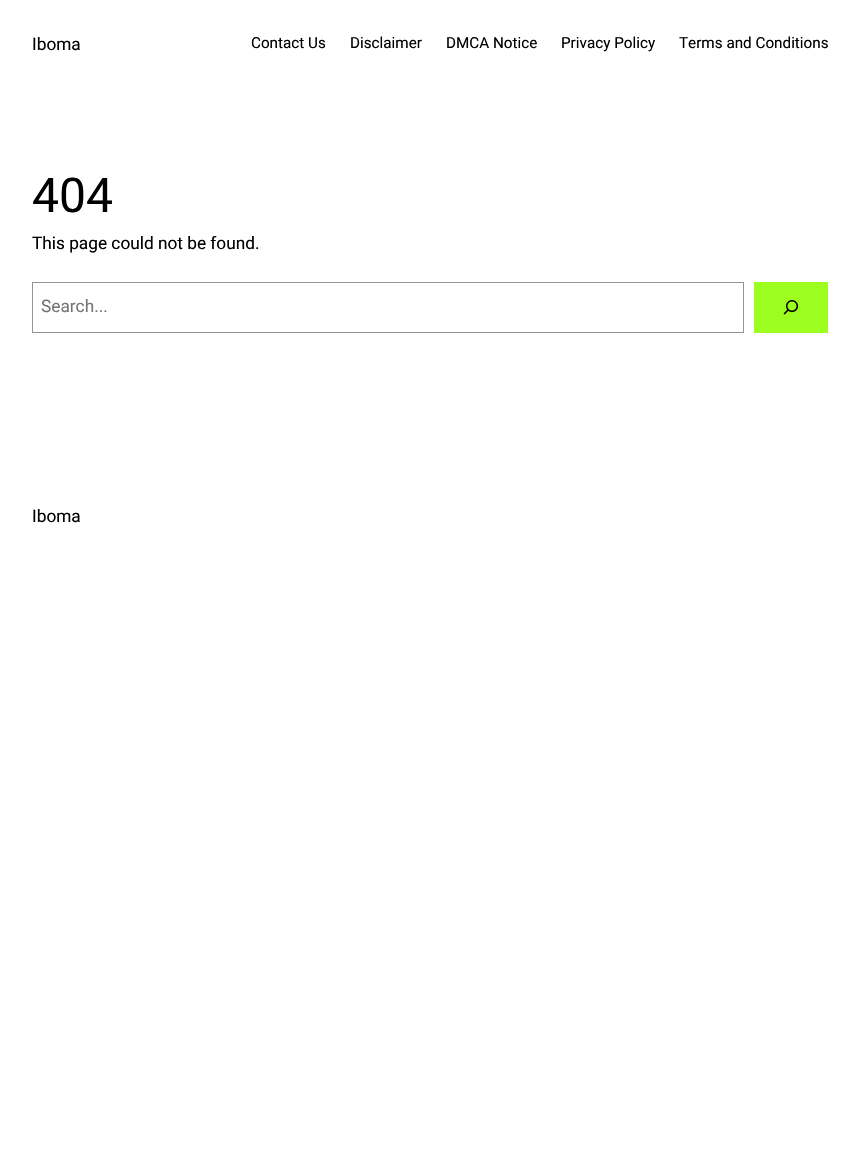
#include "include/core/SkBlurTypes.h"
#include "include/core/SkCanvas.h"
#include "include/core/SkData.h"
#include "include/core/SkFont.h"
#include "include/core/SkFontMgr.h"
#include "include/core/SkImage.h"
#include "include/core/SkMaskFilter.h"
#include "include/core/SkPaint.h"
#include "include/core/SkPathBuilder.h"
#include "include/core/SkTextBlob.h"
#include "include/effects/SkDashPathEffect.h"
#include "include/effects/SkGradientShader.h"
#include "include/utils/SkParsePath.h"

extern sk_sp<SkFontMgr> fontMgr;

void draw(SkCanvas* canvas) {
    SkPaint p;
    p.setAntiAlias(true);
    auto font = [&](const char* family, int weight, float size, bool italic = false) {
        SkFontStyle style(weight, SkFontStyle::kNormal_Width,
            italic ? SkFontStyle::kItalic_Slant : SkFontStyle::kUpright_Slant);
        SkFont result(fontMgr->matchFamilyStyle(family, style), size);
        result.setSubpixel(true);
        return result;
    };
    auto drawPhoto = [&](const char* path, float l, float t, float r, float b) {
        auto image = SkImages::DeferredFromEncodedData(SkData::MakeFromFileName(path));
        canvas->drawImageRect(image, SkRect::MakeLTRB(l, t, r, b), SkSamplingOptions());
    };
    canvas->clear(0xFFFFFFFF);
    auto font1 = font("Roboto", 400, 17.25f);
    p.setColor(0xFF000000);
    canvas->drawString("Iboma", 32, 50, font1, p);
    auto font2 = font("Roboto", 400, 15.25f);
    {
        const struct { const char* s; float x, y; } items[] = {
            {"Contact Us", 251, 48},
            {"Disclaimer", 350, 48},
            {"DMCA Notice", 446, 48},
            {"Privacy Policy", 561, 48},
            {"Terms and Conditions", 679, 48},
        };
        for (auto [s, x, y] : items) {
            canvas->drawString(s, x, y, font2, p);
        }
    }
    auto font3 = font("Roboto", 400, 48);
    canvas->drawString("404", 32, 212, font3, p);
    canvas->drawString("This page could not be found.", 32, 249, font1, p);
    p.setStyle(SkPaint::kStroke_Style);
    p.setStrokeWidth(1);
    p.setColor(0xFF949494);
    canvas->drawRect(SkRect::MakeLTRB(32.5f, 282.5f, 743.5f, 332.5f), p);
    p.setStyle(SkPaint::kFill_Style);
    p.setColor(0xFF757575);
    canvas->drawString("Search...", 41, 312, font1, p);
    p.setColor(0xFF9DFF20);
    canvas->drawRect(SkRect::MakeLTRB(754, 282, 828, 333), p);
    drawPhoto("media/1.png", 783, 300, 799, 315);
    p.setColor(0xFF000000);
    canvas->drawString("Iboma", 32, 522, font1, p);
}
